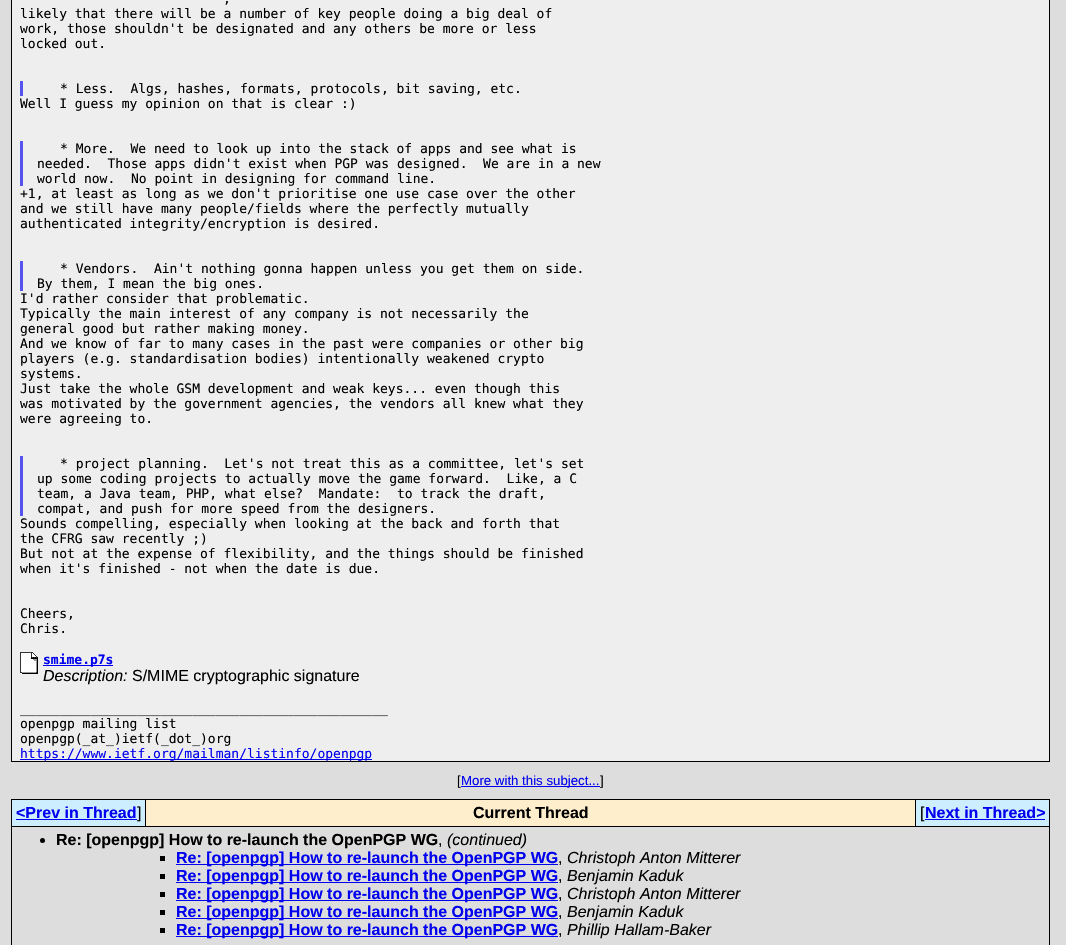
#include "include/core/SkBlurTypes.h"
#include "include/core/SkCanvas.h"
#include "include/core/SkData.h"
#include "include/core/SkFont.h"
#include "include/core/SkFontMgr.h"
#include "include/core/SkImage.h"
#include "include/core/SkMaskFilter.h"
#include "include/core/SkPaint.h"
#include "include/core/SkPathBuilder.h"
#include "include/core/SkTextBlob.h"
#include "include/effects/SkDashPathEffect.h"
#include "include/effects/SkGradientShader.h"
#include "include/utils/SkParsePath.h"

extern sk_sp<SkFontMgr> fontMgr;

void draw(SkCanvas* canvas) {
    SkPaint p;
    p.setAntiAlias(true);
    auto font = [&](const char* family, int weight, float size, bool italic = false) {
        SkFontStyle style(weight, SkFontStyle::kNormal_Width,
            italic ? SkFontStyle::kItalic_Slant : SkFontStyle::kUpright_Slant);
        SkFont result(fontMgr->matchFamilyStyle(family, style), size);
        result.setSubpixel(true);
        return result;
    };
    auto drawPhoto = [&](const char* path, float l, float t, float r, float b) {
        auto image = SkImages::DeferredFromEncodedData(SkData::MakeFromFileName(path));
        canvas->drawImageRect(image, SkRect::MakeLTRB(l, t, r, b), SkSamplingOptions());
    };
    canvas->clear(0xFFDDDDDD);
    p.setColor(0xFFEEEEEE);
    canvas->drawRect(SkRect::MakeLTRB(11.5f, -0.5f, 1049.5f, 761.5f), p);
    p.setStyle(SkPaint::kStroke_Style);
    p.setStrokeWidth(1);
    p.setColor(0xFF000000);
    canvas->drawRect(SkRect::MakeLTRB(11.5f, -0.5f, 1049.5f, 761.5f), p);
    auto font1 = font("DejaVu Sans Mono", 400, 13);
    p.setStyle(SkPaint::kFill_Style);
    {
        const struct { const char* s; float x, y; } items[] = {
            {",", 223, 3},
            {"likely that there will be a number of key people doing a big deal of", 20, 18},
            {"work, those shouldn't be designated and any others be more or less", 20, 33},
            {"locked out.", 20, 48},
        };
        for (auto [s, x, y] : items) {
            canvas->drawString(s, x, y, font1, p);
        }
    }
    p.setColor(0xFF5555EE);
    canvas->drawRect(SkRect::MakeLTRB(20, 81, 23, 96), p);
    p.setColor(0xFF000000);
    canvas->drawString("* Less.  Algs, hashes, formats, protocols, bit saving, etc.", 60, 93, font1, p);
    canvas->drawString("Well I guess my opinion on that is clear :)", 20, 108, font1, p);
    p.setColor(0xFF5555EE);
    canvas->drawRect(SkRect::MakeLTRB(20, 141, 23, 186), p);
    p.setColor(0xFF000000);
    {
        const struct { const char* s; float x, y; } items[] = {
            {"* More.  We need to look up into the stack of apps and see what is", 60, 153},
            {"needed.  Those apps didn't exist when PGP was designed.  We are in a new", 37, 168},
            {"world now.  No point in designing for command line.", 37, 183},
            {"+1, at least as long as we don't prioritise one use case over the other", 20, 198},
            {"and we still have many people/fields where the perfectly mutually", 20, 213},
            {"authenticated integrity/encryption is desired.", 20, 228},
        };
        for (auto [s, x, y] : items) {
            canvas->drawString(s, x, y, font1, p);
        }
    }
    p.setColor(0xFF5555EE);
    canvas->drawRect(SkRect::MakeLTRB(20, 261, 23, 291), p);
    p.setColor(0xFF000000);
    {
        const struct { const char* s; float x, y; } items[] = {
            {"* Vendors.  Ain't nothing gonna happen unless you get them on side.", 60, 273},
            {"By them, I mean the big ones.", 37, 288},
            {"I'd rather consider that problematic.", 20, 303},
            {"Typically the main interest of any company is not necessarily the", 20, 318},
            {"general good but rather making money.", 20, 333},
            {"And we know of far to many cases in the past were companies or other big", 20, 348},
            {"players (e.g. standardisation bodies) intentionally weakened crypto", 20, 363},
            {"systems.", 20, 378},
            {"Just take the whole GSM development and weak keys... even though this", 20, 393},
            {"was motivated by the government agencies, the vendors all knew what they", 20, 408},
            {"were agreeing to.", 20, 423},
        };
        for (auto [s, x, y] : items) {
            canvas->drawString(s, x, y, font1, p);
        }
    }
    p.setColor(0xFF5555EE);
    canvas->drawRect(SkRect::MakeLTRB(20, 456, 23, 516), p);
    p.setColor(0xFF000000);
    {
        const struct { const char* s; float x, y; } items[] = {
            {"* project planning.  Let's not treat this as a committee, let's set", 60, 468},
            {"up some coding projects to actually move the game forward.  Like, a C", 37, 483},
            {"team, a Java team, PHP, what else?  Mandate:  to track the draft,", 37, 498},
            {"compat, and push for more speed from the designers.", 37, 513},
            {"Sounds compelling, especially when looking at the back and forth that", 20, 528},
            {"the CFRG saw recently ;)", 20, 543},
            {"But not at the expense of flexibility, and the things should be finished", 20, 558},
            {"when it's finished - not when the date is due.", 20, 573},
            {"Cheers,", 20, 618},
            {"Chris.", 20, 633},
        };
        for (auto [s, x, y] : items) {
            canvas->drawString(s, x, y, font1, p);
        }
    }
    drawPhoto("media/1.png", 20, 652, 38, 674);
    p.setColor(0xFF0000EE);
    canvas->drawRect(SkRect::MakeLTRB(43, 665, 113, 666), p);
    auto font2 = font("DejaVu Sans Mono", 700, 13);
    canvas->drawString("smime.p7s", 43, 664, font2, p);
    auto font3 = font("Liberation Sans", 400, 16, true);
    p.setColor(0xFF000000);
    canvas->drawString("Description:", 43, 681, font3, p);
    auto font4 = font("Liberation Sans", 400, 16);
    canvas->drawString("S/MIME cryptographic signature", 132, 681, font4, p);
    {
        const struct { const char* s; float x, y; } items[] = {
            {"_______________________________________________", 20, 713},
            {"openpgp mailing list", 20, 728},
            {"openpgp(_at_)ietf(_dot_)org", 20, 743},
        };
        for (auto [s, x, y] : items) {
            canvas->drawString(s, x, y, font1, p);
        }
    }
    p.setColor(0xFF0000EE);
    canvas->drawRect(SkRect::MakeLTRB(20, 759, 372, 760), p);
    canvas->drawString("https://www.ietf.org/mailman/listinfo/openpgp", 20, 758, font1, p);
    auto font5 = font("Liberation Sans", 400, 13.25f);
    p.setColor(0xFF000000);
    canvas->drawString("[", 457, 785, font5, p);
    p.setColor(0xFF0000EE);
    canvas->drawRect(SkRect::MakeLTRB(461, 786, 600, 787), p);
    canvas->drawString("More with this subject...", 461, 785, font5, p);
    p.setColor(0xFF000000);
    canvas->drawString("]", 600, 785, font5, p);
    canvas->drawRect(SkRect::MakeLTRB(11, 799, 1050, 945), p);
    p.setColor(0xFFCCEEFF);
    canvas->drawRect(SkRect::MakeLTRB(12, 800, 145, 826), p);
    auto font6 = font("Liberation Sans", 700, 16);
    p.setColor(0xFF0000EE);
    canvas->drawString("<Prev in Thread", 16, 818, font6, p);
    canvas->drawRect(SkRect::MakeLTRB(16, 819, 137, 820), p);
    p.setColor(0xFF000000);
    canvas->drawString("]", 137, 818, font4, p);
    p.setColor(0xFFFFEECC);
    canvas->drawRect(SkRect::MakeLTRB(146, 800, 915, 826), p);
    p.setColor(0xFF000000);
    canvas->drawString("Current Thread", 473, 818, font6, p);
    p.setColor(0xFFCCEEFF);
    canvas->drawRect(SkRect::MakeLTRB(916, 800, 1049, 826), p);
    p.setColor(0xFF000000);
    canvas->drawString("[", 920, 818, font4, p);
    p.setColor(0xFF0000EE);
    canvas->drawString("Next in Thread>", 925, 818, font6, p);
    canvas->drawRect(SkRect::MakeLTRB(925, 819, 1045, 820), p);
    p.setColor(0xFFDDDDDD);
    canvas->drawRect(SkRect::MakeLTRB(12, 827, 1049, 945), p);
    p.setColor(0xFF000000);
    canvas->drawCircle(42.5f, 840.5f, 2.5f, p);
    canvas->drawString("Re: [openpgp] How to re-launch the OpenPGP WG", 56, 845, font6, p);
    canvas->drawString("(continued)", 447, 845, font3, p);
    canvas->drawString(",", 438, 845, font4, p);
    canvas->drawRect(SkRect::MakeLTRB(160, 856, 165, 861), p);
    p.setColor(0xFF0000EE);
    canvas->drawRect(SkRect::MakeLTRB(176, 864, 558, 865), p);
    canvas->drawString("Re: [openpgp] How to re-launch the OpenPGP WG", 176, 863, font6, p);
    p.setColor(0xFF000000);
    canvas->drawString("Christoph Anton Mitterer", 567, 863, font3, p);
    canvas->drawString(",", 558, 863, font4, p);
    canvas->drawRect(SkRect::MakeLTRB(160, 874, 165, 879), p);
    p.setColor(0xFF0000EE);
    canvas->drawRect(SkRect::MakeLTRB(176, 882, 558, 883), p);
    canvas->drawString("Re: [openpgp] How to re-launch the OpenPGP WG", 176, 881, font6, p);
    p.setColor(0xFF000000);
    canvas->drawString("Benjamin Kaduk", 567, 881, font3, p);
    canvas->drawString(",", 558, 881, font4, p);
    canvas->drawRect(SkRect::MakeLTRB(160, 892, 165, 897), p);
    p.setColor(0xFF0000EE);
    canvas->drawRect(SkRect::MakeLTRB(176, 900, 558, 901), p);
    canvas->drawString("Re: [openpgp] How to re-launch the OpenPGP WG", 176, 899, font6, p);
    p.setColor(0xFF000000);
    canvas->drawString("Christoph Anton Mitterer", 567, 899, font3, p);
    canvas->drawString(",", 558, 899, font4, p);
    canvas->drawRect(SkRect::MakeLTRB(160, 910, 165, 915), p);
    p.setColor(0xFF0000EE);
    canvas->drawRect(SkRect::MakeLTRB(176, 918, 558, 919), p);
    canvas->drawString("Re: [openpgp] How to re-launch the OpenPGP WG", 176, 917, font6, p);
    p.setColor(0xFF000000);
    canvas->drawString("Benjamin Kaduk", 567, 917, font3, p);
    canvas->drawString(",", 558, 917, font4, p);
    canvas->drawRect(SkRect::MakeLTRB(160, 928, 165, 933), p);
    p.setColor(0xFF0000EE);
    canvas->drawRect(SkRect::MakeLTRB(176, 936, 558, 937), p);
    canvas->drawString("Re: [openpgp] How to re-launch the OpenPGP WG", 176, 935, font6, p);
    p.setColor(0xFF000000);
    canvas->drawString("Phillip Hallam-Baker", 567, 935, font3, p);
    canvas->drawString(",", 558, 935, font4, p);
}
